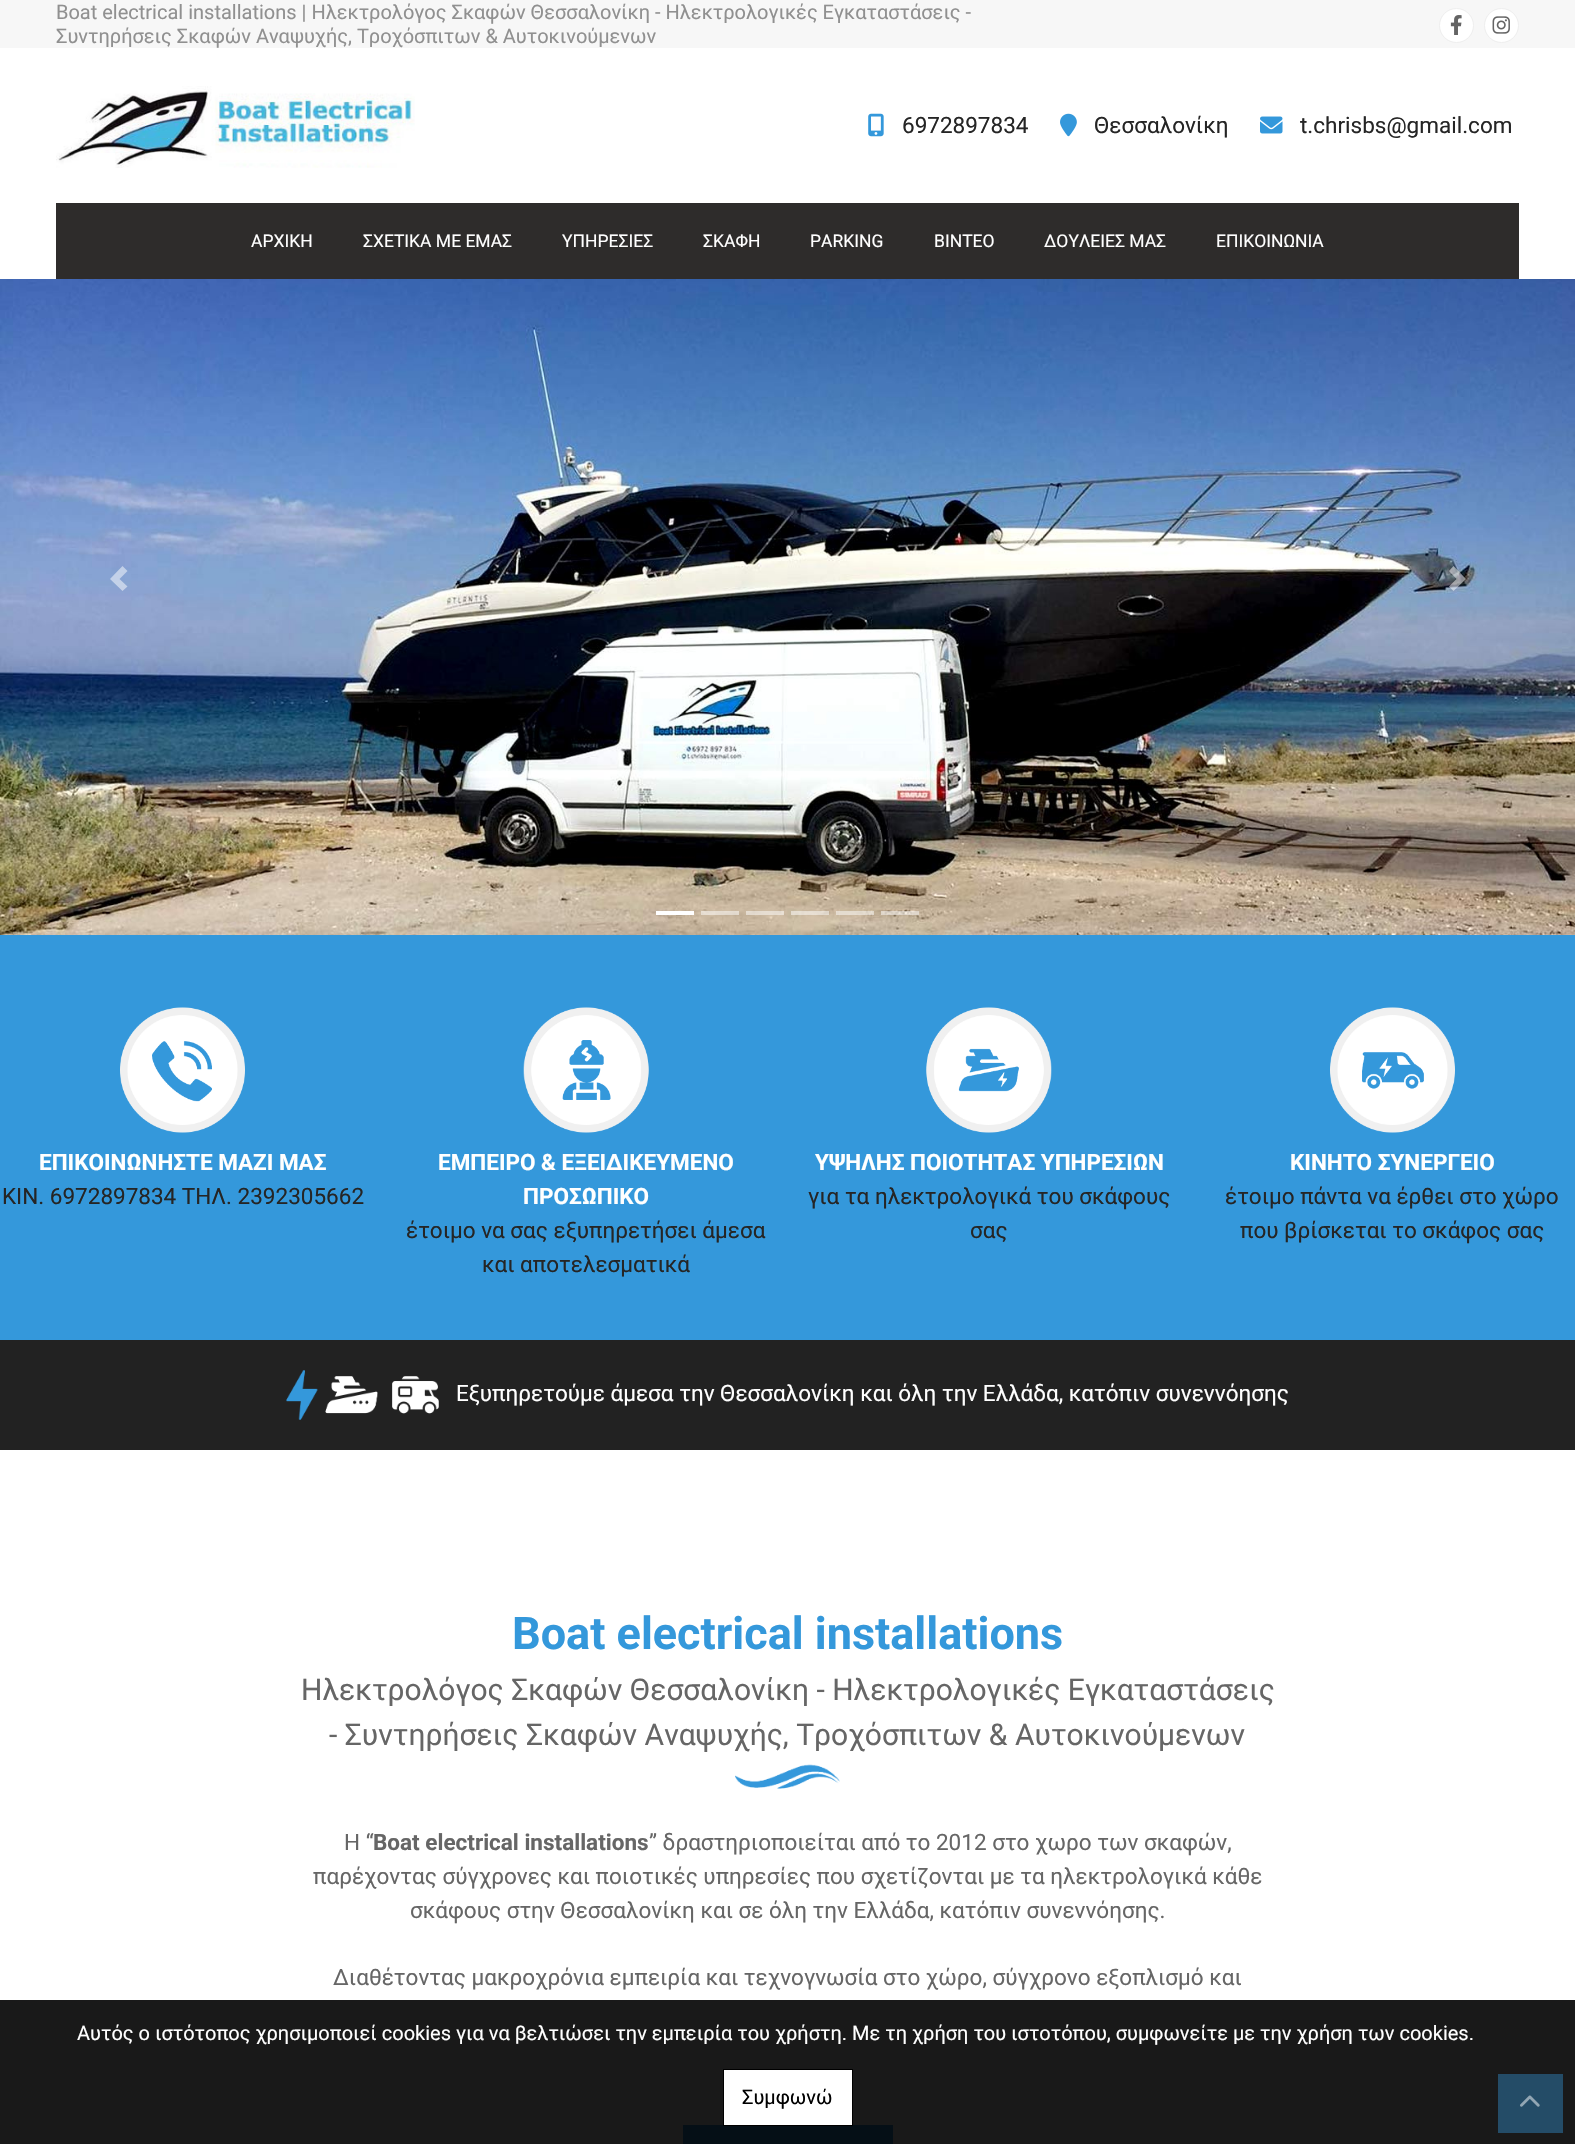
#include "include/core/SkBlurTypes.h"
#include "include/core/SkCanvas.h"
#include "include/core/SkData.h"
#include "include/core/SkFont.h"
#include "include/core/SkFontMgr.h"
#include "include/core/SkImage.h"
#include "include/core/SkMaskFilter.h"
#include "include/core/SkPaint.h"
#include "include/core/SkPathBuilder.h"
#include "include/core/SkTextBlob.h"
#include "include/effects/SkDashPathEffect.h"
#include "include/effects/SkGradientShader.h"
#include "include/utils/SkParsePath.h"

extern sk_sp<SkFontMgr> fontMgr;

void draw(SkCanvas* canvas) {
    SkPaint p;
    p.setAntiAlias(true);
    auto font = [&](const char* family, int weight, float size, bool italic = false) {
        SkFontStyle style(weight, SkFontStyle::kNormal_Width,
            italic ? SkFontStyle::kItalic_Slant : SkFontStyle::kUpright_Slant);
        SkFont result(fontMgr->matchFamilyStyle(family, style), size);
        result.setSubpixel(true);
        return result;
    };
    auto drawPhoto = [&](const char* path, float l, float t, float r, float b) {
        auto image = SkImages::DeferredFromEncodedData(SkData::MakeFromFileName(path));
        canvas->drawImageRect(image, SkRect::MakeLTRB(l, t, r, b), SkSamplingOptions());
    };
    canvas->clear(0xFFFFFFFF);
    p.setColor(0xFF191919);
    canvas->drawRect(SkRect::MakeLTRB(0, 2000, 1575, 2144), p);
    p.setColor(0xFFF7F7F7);
    canvas->drawRect(SkRect::MakeLTRB(0, 0, 1575, 48), p);
    auto font1 = font("Roboto", 400, 20);
    p.setColor(0xFF909090);
    canvas->drawString("Boat electrical installations | Ηλεκτρολόγος Σκαφών Θεσσαλονίκη - Ηλεκτρολογικές Εγκαταστάσεις -", 56, 19, font1, p);
    canvas->drawString("Συντηρήσεις Σκαφών Αναψυχής, Τροχόσπιτων & Αυτοκινούμενων", 56, 43, font1, p);
    p.setColor(0xFFFFFFFF);
    canvas->drawCircle(1456.5f, 25.5f, 17, p);
    p.setStyle(SkPaint::kStroke_Style);
    p.setStrokeWidth(1);
    p.setColor(0xFFEEEEEE);
    canvas->drawCircle(1456.5f, 25.5f, 17, p);
    drawPhoto("media/1.png", 1450, 15, 1462, 35);
    p.setStyle(SkPaint::kFill_Style);
    p.setColor(0xFFFFFFFF);
    canvas->drawCircle(1501.5f, 25.5f, 17, p);
    p.setStyle(SkPaint::kStroke_Style);
    p.setColor(0xFFEEEEEE);
    canvas->drawCircle(1501.5f, 25.5f, 17, p);
    drawPhoto("media/2.png", 1492, 16, 1510, 34);
    drawPhoto("media/3.png", 56, 86, 415, 168);
    drawPhoto("media/4.png", 868, 113, 884, 137);
    auto font2 = font("Roboto", 400, 22.5f);
    p.setStyle(SkPaint::kFill_Style);
    p.setColor(0xFF252525);
    canvas->drawString("6972897834", 902, 133, font2, p);
    drawPhoto("media/5.png", 1060, 113, 1077, 137);
    canvas->drawString("Θεσσαλονίκη", 1094, 133, font2, p);
    drawPhoto("media/6.png", 1260, 116, 1283, 134);
    canvas->drawString("t.chrisbs@gmail.com", 1300, 133, font2, p);
    p.setColor(0xFF2E2C2B);
    canvas->drawRect(SkRect::MakeLTRB(56, 203, 1519, 279), p);
    auto font3 = font("Roboto", 400, 17.5f);
    p.setColor(0xFFFFFFFF);
    {
        const struct { const char* s; float x, y; } items[] = {
            {"ΑΡΧΙΚΗ", 251, 247},
            {"ΣΧΕΤΙΚΑ ΜΕ ΕΜΑΣ", 363, 247},
            {"ΥΠΗΡΕΣΙΕΣ", 562, 247},
            {"ΣΚΑΦΗ", 703, 247},
            {"PARKING", 810, 247},
            {"ΒΙΝΤΕΟ", 934, 247},
            {"ΔΟΥΛΕΙΕΣ ΜΑΣ", 1044, 247},
            {"ΕΠΙΚΟΙΝΩΝΙΑ", 1216, 247},
        };
        for (auto [s, x, y] : items) {
            canvas->drawString(s, x, y, font3, p);
        }
    }
    drawPhoto("media/7.png", 0, 279, 1575, 935);
    p.setColor(0x80FFFFFF);
    canvas->drawPath(SkPathBuilder().moveTo(122.5f, 566).lineTo(110, 579).lineTo(122.5f, 591).lineTo(127.5f, 586.5f).lineTo(119.5f, 579).lineTo(127.5f, 571).close().detach(), p);
    canvas->drawPath(SkPathBuilder().moveTo(1453.5f, 566).lineTo(1449, 571).lineTo(1456.5f, 579).lineTo(1449, 586.5f).lineTo(1453.5f, 591).lineTo(1466, 579).close().detach(), p);
    {
        const struct { float l, t, r, b; SkColor color; } items[] = {
            {656, 911, 694, 915, 0xFFFFFFFF},
            {701, 911, 739, 915, 0x80FFFFFF},
            {746, 911, 784, 915, 0x80FFFFFF},
            {791, 911, 829, 915, 0x80FFFFFF},
            {836, 911, 874, 915, 0x80FFFFFF},
            {881, 911, 919, 915, 0x80FFFFFF},
            {0, 935, 1575, 1340, 0xFF3498DB},
        };
        for (auto [l, t, r, b, color] : items) {
            p.setColor(color);
            canvas->drawRect(SkRect::MakeLTRB(l, t, r, b), p);
        }
    }
    drawPhoto("media/8.png", 120, 1007, 245, 1133);
    auto font4 = font("Roboto", 700, 22.5f);
    p.setColor(0xFFFFFFFF);
    canvas->drawString("ΕΠΙΚΟΙΝΩΝΗΣΤΕ ΜΑΖΙ ΜΑΣ", 39, 1170, font4, p);
    p.setColor(0xFF252525);
    canvas->drawString("ΚΙΝ. 6972897834 ΤΗΛ. 2392305662", 2, 1204, font2, p);
    drawPhoto("media/9.png", 523, 1007, 649, 1133);
    p.setColor(0xFFFFFFFF);
    canvas->drawString("ΕΜΠΕΙΡΟ & ΕΞΕΙΔΙΚΕΥΜΕΝΟ", 438, 1170, font4, p);
    canvas->drawString("ΠΡΟΣΩΠΙΚΟ", 523, 1204, font4, p);
    p.setColor(0xFF252525);
    canvas->drawString("έτοιμο να σας εξυπηρετήσει άμεσα", 406, 1238, font2, p);
    canvas->drawString("και αποτελεσματικά", 482, 1272, font2, p);
    drawPhoto("media/10.png", 926, 1007, 1052, 1133);
    p.setColor(0xFFFFFFFF);
    canvas->drawString("ΥΨΗΛΗΣ ΠΟΙΟΤΗΤΑΣ ΥΠΗΡΕΣΙΩΝ", 815, 1170, font4, p);
    p.setColor(0xFF252525);
    canvas->drawString("για τα ηλεκτρολογικά του σκάφους", 808, 1204, font2, p);
    canvas->drawString("σας", 970, 1238, font2, p);
    drawPhoto("media/11.png", 1330, 1007, 1455, 1133);
    p.setColor(0xFFFFFFFF);
    canvas->drawString("ΚΙΝΗΤΟ ΣΥΝΕΡΓΕΙΟ", 1290, 1170, font4, p);
    p.setColor(0xFF252525);
    canvas->drawString("έτοιμο πάντα να έρθει στο χώρο", 1225, 1204, font2, p);
    canvas->drawString("που βρίσκεται το σκάφος σας", 1240, 1238, font2, p);
    p.setColor(0xFF222222);
    canvas->drawRect(SkRect::MakeLTRB(0, 1340, 1575, 1450), p);
    drawPhoto("media/12.png", 286, 1370, 439, 1420);
    p.setColor(0xFFFFFFFF);
    canvas->drawString("Εξυπηρετούμε άμεσα την Θεσσαλονίκη και όλη την Ελλάδα, κατόπιν συνεννόησης", 456, 1401, font2, p);
    auto font5 = font("Roboto", 700, 45);
    p.setColor(0xFF3498DB);
    canvas->drawString("Boat electrical installations", 512, 1649, font5, p);
    auto font6 = font("Roboto", 400, 30);
    p.setColor(0xFF666666);
    canvas->drawString("Ηλεκτρολόγος Σκαφών Θεσσαλονίκη - Ηλεκτρολογικές Εγκαταστάσεις", 301, 1700, font6, p);
    canvas->drawString("- Συντηρήσεις Σκαφών Αναψυχής, Τροχόσπιτων & Αυτοκινούμενων", 329, 1745, font6, p);
    drawPhoto("media/13.png", 735, 1764, 840, 1789);
    canvas->drawString("Η “", 344, 1850, font2, p);
    canvas->drawString("Boat electrical installations", 373, 1850, font4, p);
    {
        const struct { const char* s; float x, y; } items[] = {
            {"” δραστηριοποιείται από το 2012 στο χωρο των σκαφών,", 649, 1850},
            {"παρέχοντας σύγχρονες και ποιοτικές υπηρεσίες που σχετίζονται με τα ηλεκτρολογικά κάθε", 313, 1884},
            {"σκάφους στην Θεσσαλονίκη και σε όλη την Ελλάδα, κατόπιν συνεννόησης.", 410, 1918},
            {"Διαθέτοντας μακροχρόνια εμπειρία και τεχνογνωσία στο χώρο, σύγχρονο εξοπλισμό και", 333, 1985},
        };
        for (auto [s, x, y] : items) {
            canvas->drawString(s, x, y, font2, p);
        }
    }
    p.setColor(0xFF050F16);
    canvas->drawRect(SkRect::MakeLTRB(683, 2125, 893, 2144), p);
    p.setColor(0xFFFFFFFF);
    canvas->drawString("Αυτός ο ιστότοπος χρησιμοποιεί cookies για να βελτιώσει την εμπειρία του χρήστη. Με τη χρήση του ιστοτόπου, συμφωνείτε με την χρήση των cookies.", 77, 2040, font1, p);
    canvas->drawRect(SkRect::MakeLTRB(723.5f, 2069.5f, 852.5f, 2125.5f), p);
    p.setStyle(SkPaint::kStroke_Style);
    p.setColor(0xFF000000);
    canvas->drawRect(SkRect::MakeLTRB(723.5f, 2069.5f, 852.5f, 2125.5f), p);
    p.setStyle(SkPaint::kFill_Style);
    canvas->drawString("Συμφωνώ", 742, 2104, font1, p);
    p.setColor(0xFF244C67);
    canvas->drawRect(SkRect::MakeLTRB(1498, 2074, 1563, 2133), p);
    drawPhoto("media/14.png", 1520, 2095, 1540, 2107);
}
